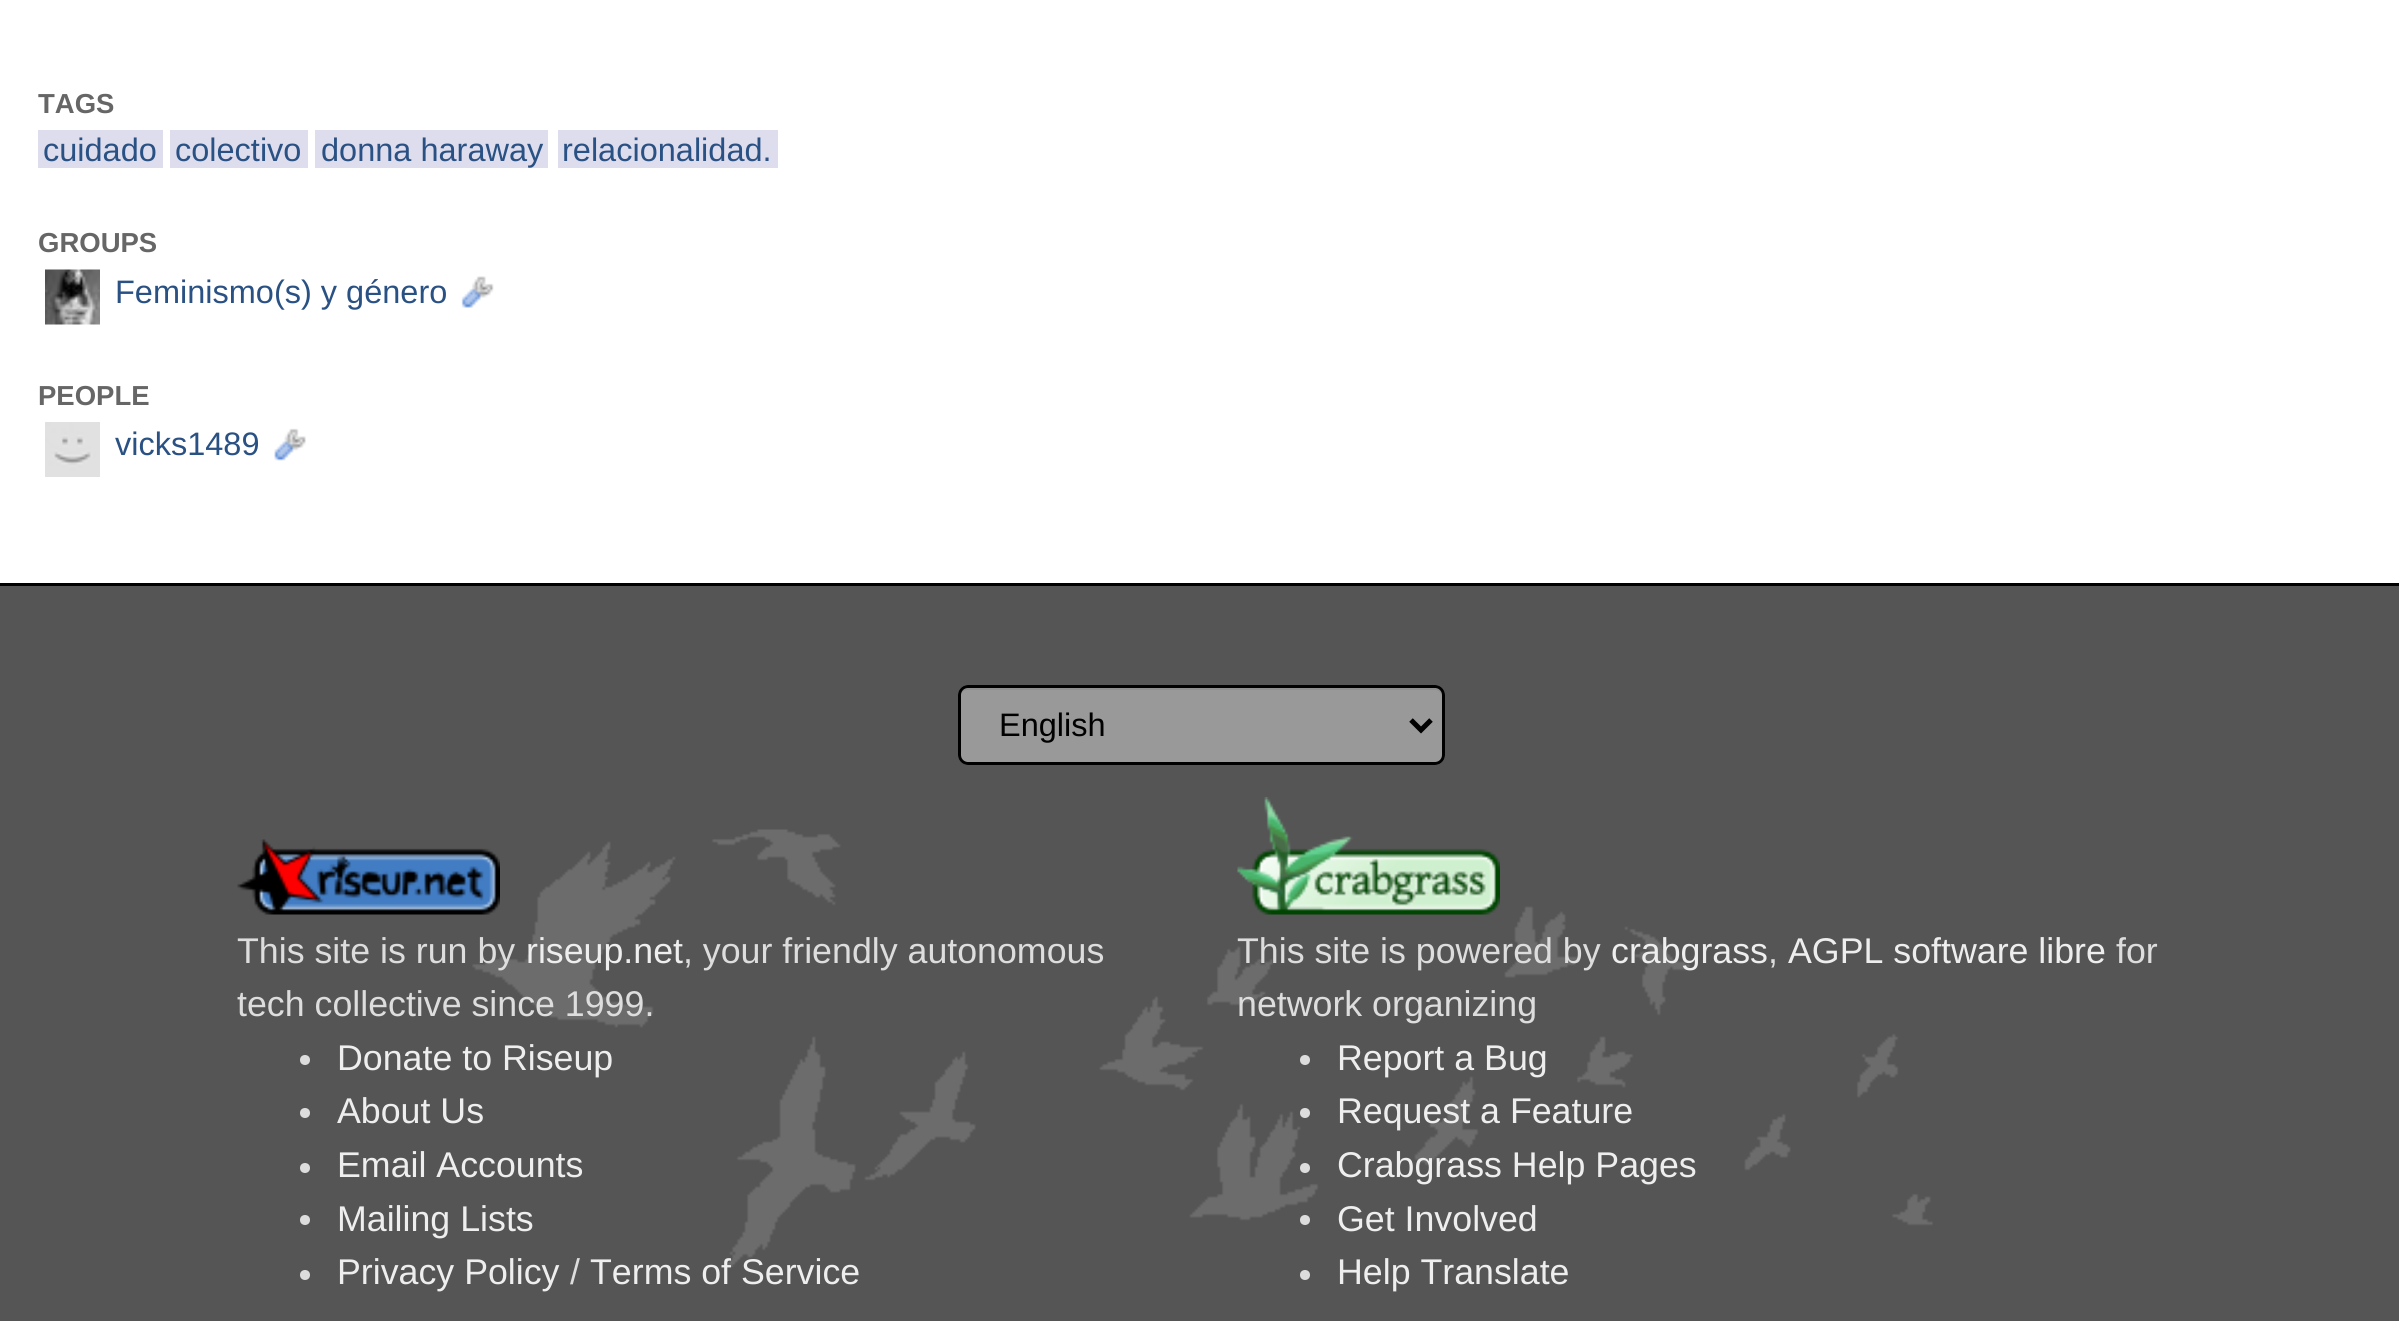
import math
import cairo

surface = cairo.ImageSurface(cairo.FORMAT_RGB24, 2399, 1321)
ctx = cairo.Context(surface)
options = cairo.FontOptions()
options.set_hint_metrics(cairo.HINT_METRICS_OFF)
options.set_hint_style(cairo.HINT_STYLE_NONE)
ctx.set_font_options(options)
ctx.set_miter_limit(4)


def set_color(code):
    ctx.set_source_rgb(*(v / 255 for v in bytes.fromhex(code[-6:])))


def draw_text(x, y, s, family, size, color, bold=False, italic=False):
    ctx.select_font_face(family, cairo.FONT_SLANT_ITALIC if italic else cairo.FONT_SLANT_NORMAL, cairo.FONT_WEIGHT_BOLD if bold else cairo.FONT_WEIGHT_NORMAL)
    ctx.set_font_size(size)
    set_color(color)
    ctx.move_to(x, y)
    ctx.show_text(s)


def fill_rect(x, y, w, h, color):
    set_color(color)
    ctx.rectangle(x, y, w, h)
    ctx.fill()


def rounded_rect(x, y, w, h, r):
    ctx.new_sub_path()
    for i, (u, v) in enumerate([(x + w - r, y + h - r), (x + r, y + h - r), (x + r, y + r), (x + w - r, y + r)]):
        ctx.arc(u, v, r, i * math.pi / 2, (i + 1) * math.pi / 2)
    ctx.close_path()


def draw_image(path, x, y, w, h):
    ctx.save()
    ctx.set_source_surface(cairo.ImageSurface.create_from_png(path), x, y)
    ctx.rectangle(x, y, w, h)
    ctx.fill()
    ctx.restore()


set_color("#555555")
ctx.paint()
fill_rect(0, 0, 2399, 583, "#ffffff")
fill_rect(0, 583, 2399, 3, "#000000")
draw_text(38, 113, "TAGS", "Liberation Sans", 27.5, "#666666", bold=True)
fill_rect(38, 130, 125, 38, "#ddddee")
draw_text(43, 161, "cuidado", "Liberation Sans", 32.5, "#2a5183")
fill_rect(170, 130, 138, 38, "#ddddee")
draw_text(175, 161, "colectivo", "Liberation Sans", 32.5, "#2a5183")
fill_rect(315, 130, 233, 38, "#ddddee")
draw_text(321, 161, "donna haraway", "Liberation Sans", 32.5, "#2a5183")
fill_rect(558, 130, 220, 38, "#ddddee")
draw_text(562, 161, "relacionalidad.", "Liberation Sans", 32.5, "#2a5183")
draw_text(38, 252, "GROUPS", "Liberation Sans", 27.5, "#666666", bold=True)
draw_image("assets/img1.png", 45, 269, 55, 56)
draw_text(115, 303, "Feminismo(s) y género", "Liberation Sans", 32.5, "#2a5183")
draw_image("assets/img2.png", 461, 276, 33, 32)
draw_text(38, 405, "PEOPLE", "Liberation Sans", 27.5, "#666666", bold=True)
draw_image("assets/img3.png", 45, 422, 55, 55)
draw_text(115, 455, "vicks1489", "Liberation Sans", 32.5, "#2a5183")
draw_image("assets/img4.png", 274, 428, 32, 33)
draw_image("assets/img5.png", 472, 829, 1461, 438)
set_color("#999999")
rounded_rect(958, 685, 487, 80, 10)
ctx.fill()
set_color("#8e8e8e")
ctx.new_path()
ctx.move_to(968, 690)
ctx.line_to(1435, 690)
ctx.curve_to(1439, 690, 1442, 693, 1442, 698)
ctx.line_to(1442, 759)
ctx.curve_to(1443, 758, 1443, 756, 1443, 755)
ctx.line_to(1443, 696)
ctx.curve_to(1443, 692, 1439, 688, 1435, 688)
ctx.line_to(968, 688)
ctx.curve_to(964, 688, 960, 692, 960, 696)
ctx.line_to(960, 698)
ctx.curve_to(960, 693, 963, 690, 968, 690)
ctx.close_path()
ctx.fill()
rounded_rect(959.5, 686.5, 484, 77, 8.5)
set_color("#000000")
ctx.set_line_width(3)
ctx.stroke()
ctx.new_path()
ctx.move_to(1411, 720)
ctx.line_to(1421, 730)
ctx.line_to(1431, 720)
ctx.set_line_width(5)
ctx.stroke()
draw_text(999, 736, "English", "Liberation Sans", 32.5, "#000000")
draw_image("assets/img6.png", 237, 839, 263, 76)
draw_text(237, 963, "This site is run by", "Liberation Sans", 35.75, "#dddddd")
draw_text(526, 963, "riseup.net", "Liberation Sans", 35.75, "#eeeeee")
draw_text(683, 963, ", your friendly autonomous", "Liberation Sans", 35.75, "#dddddd")
draw_text(237, 1016, "tech collective since 1999.", "Liberation Sans", 35.75, "#dddddd")
ctx.new_path()
ctx.arc(305, 1060, 5, 0, 2 * math.pi)
ctx.fill()
draw_text(337, 1070, "Donate to Riseup", "Liberation Sans", 35.75, "#eeeeee")
set_color("#dddddd")
ctx.new_path()
ctx.arc(305, 1113, 5, 0, 2 * math.pi)
ctx.fill()
draw_text(337, 1123, "About Us", "Liberation Sans", 35.75, "#eeeeee")
set_color("#dddddd")
ctx.new_path()
ctx.arc(305, 1168, 5, 0, 2 * math.pi)
ctx.fill()
draw_text(337, 1177, "Email Accounts", "Liberation Sans", 35.75, "#eeeeee")
set_color("#dddddd")
ctx.new_path()
ctx.arc(305, 1220, 5, 0, 2 * math.pi)
ctx.fill()
draw_text(337, 1231, "Mailing Lists", "Liberation Sans", 35.75, "#eeeeee")
set_color("#dddddd")
ctx.new_path()
ctx.arc(305, 1275, 5, 0, 2 * math.pi)
ctx.fill()
draw_text(337, 1284, "Privacy Policy", "Liberation Sans", 35.75, "#eeeeee")
draw_text(570, 1284, "/", "Liberation Sans", 35.75, "#dddddd")
draw_text(590, 1284, "Terms of Service", "Liberation Sans", 35.75, "#eeeeee")
draw_image("assets/img7.png", 1237, 797, 263, 118)
draw_text(1237, 963, "This site is powered by", "Liberation Sans", 35.75, "#dddddd")
draw_text(1611, 963, "crabgrass", "Liberation Sans", 35.75, "#eeeeee")
draw_text(1768, 963, ",", "Liberation Sans", 35.75, "#dddddd")
draw_text(1788, 963, "AGPL software libre", "Liberation Sans", 35.75, "#eeeeee")
draw_text(2116, 963, "for", "Liberation Sans", 35.75, "#dddddd")
draw_text(1237, 1016, "network organizing", "Liberation Sans", 35.75, "#dddddd")
ctx.new_path()
ctx.arc(1305, 1060, 5, 0, 2 * math.pi)
ctx.fill()
draw_text(1337, 1070, "Report a Bug", "Liberation Sans", 35.75, "#eeeeee")
set_color("#dddddd")
ctx.new_path()
ctx.arc(1305, 1113, 5, 0, 2 * math.pi)
ctx.fill()
draw_text(1337, 1123, "Request a Feature", "Liberation Sans", 35.75, "#eeeeee")
set_color("#dddddd")
ctx.new_path()
ctx.arc(1305, 1168, 5, 0, 2 * math.pi)
ctx.fill()
draw_text(1337, 1177, "Crabgrass Help Pages", "Liberation Sans", 35.75, "#eeeeee")
set_color("#dddddd")
ctx.new_path()
ctx.arc(1305, 1220, 5, 0, 2 * math.pi)
ctx.fill()
draw_text(1337, 1231, "Get Involved", "Liberation Sans", 35.75, "#eeeeee")
set_color("#dddddd")
ctx.new_path()
ctx.arc(1305, 1275, 5, 0, 2 * math.pi)
ctx.fill()
draw_text(1337, 1284, "Help Translate", "Liberation Sans", 35.75, "#eeeeee")
surface.write_to_png("output.png")
